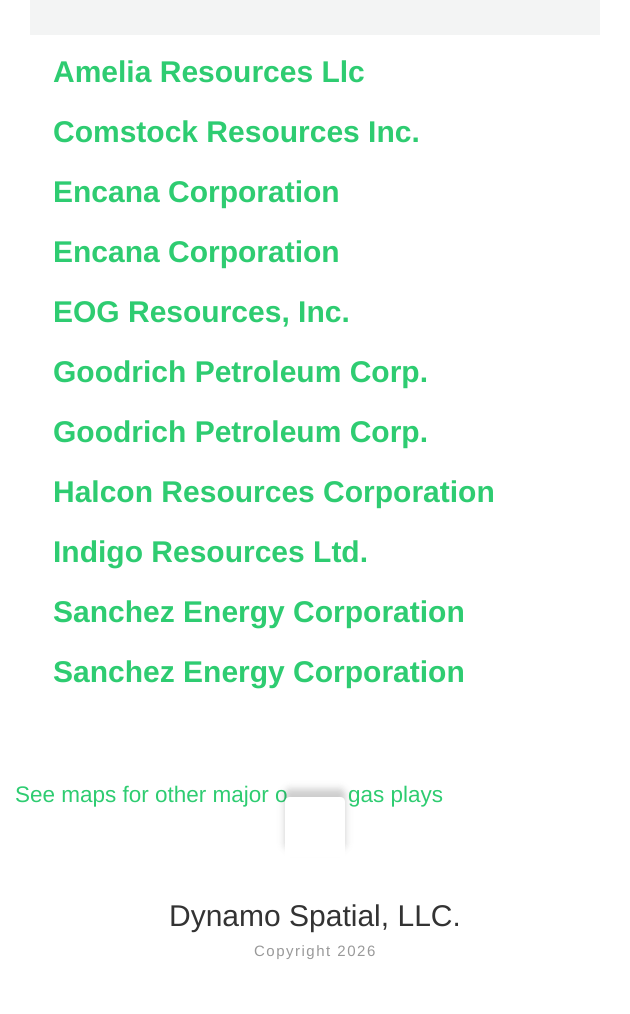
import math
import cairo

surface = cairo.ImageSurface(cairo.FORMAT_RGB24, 630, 1014)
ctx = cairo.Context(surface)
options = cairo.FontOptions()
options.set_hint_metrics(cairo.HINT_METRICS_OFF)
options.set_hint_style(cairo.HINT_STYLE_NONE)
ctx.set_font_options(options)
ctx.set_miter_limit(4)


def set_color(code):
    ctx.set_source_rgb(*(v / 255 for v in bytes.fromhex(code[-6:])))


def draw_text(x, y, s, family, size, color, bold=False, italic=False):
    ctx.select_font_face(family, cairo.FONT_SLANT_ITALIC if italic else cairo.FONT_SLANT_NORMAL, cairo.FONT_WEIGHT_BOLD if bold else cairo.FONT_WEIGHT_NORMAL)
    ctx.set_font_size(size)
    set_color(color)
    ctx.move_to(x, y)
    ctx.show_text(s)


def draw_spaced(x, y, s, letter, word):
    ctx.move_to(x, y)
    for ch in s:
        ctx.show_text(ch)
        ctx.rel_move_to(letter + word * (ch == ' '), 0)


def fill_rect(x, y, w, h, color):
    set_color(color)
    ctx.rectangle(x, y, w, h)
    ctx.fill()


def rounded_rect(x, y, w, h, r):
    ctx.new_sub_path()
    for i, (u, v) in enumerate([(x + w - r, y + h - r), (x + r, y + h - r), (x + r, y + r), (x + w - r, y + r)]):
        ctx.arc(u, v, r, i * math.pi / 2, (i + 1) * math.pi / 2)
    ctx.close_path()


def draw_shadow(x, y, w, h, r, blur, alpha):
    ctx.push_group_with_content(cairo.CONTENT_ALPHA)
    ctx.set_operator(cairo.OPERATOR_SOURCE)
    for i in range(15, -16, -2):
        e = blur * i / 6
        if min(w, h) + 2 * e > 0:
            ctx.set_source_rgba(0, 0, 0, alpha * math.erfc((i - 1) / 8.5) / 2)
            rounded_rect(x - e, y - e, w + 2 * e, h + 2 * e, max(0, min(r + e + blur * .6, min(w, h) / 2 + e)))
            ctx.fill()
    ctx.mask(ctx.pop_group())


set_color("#ffffff")
ctx.paint()
fill_rect(30, 0, 570, 35, "#f3f4f4")
draw_text(53, 82, "Amelia Resources Llc", "Liberation Sans", 30, "#2ecc71", bold=True)
draw_text(53, 142, "Comstock Resources Inc.", "Liberation Sans", 30, "#2ecc71", bold=True)
draw_text(53, 202, "Encana Corporation", "Liberation Sans", 30, "#2ecc71", bold=True)
draw_text(53, 262, "Encana Corporation", "Liberation Sans", 30, "#2ecc71", bold=True)
draw_text(53, 322, "EOG Resources, Inc.", "Liberation Sans", 30, "#2ecc71", bold=True)
draw_text(53, 382, "Goodrich Petroleum Corp.", "Liberation Sans", 30, "#2ecc71", bold=True)
draw_text(53, 442, "Goodrich Petroleum Corp.", "Liberation Sans", 30, "#2ecc71", bold=True)
draw_text(53, 502, "Halcon Resources Corporation", "Liberation Sans", 30, "#2ecc71", bold=True)
draw_text(53, 562, "Indigo Resources Ltd.", "Liberation Sans", 30, "#2ecc71", bold=True)
draw_text(53, 622, "Sanchez Energy Corporation", "Liberation Sans", 30, "#2ecc71", bold=True)
draw_text(53, 682, "Sanchez Energy Corporation", "Liberation Sans", 30, "#2ecc71", bold=True)
draw_text(15, 802, "See maps for other major o", "Liberation Sans", 22.5, "#2ecc71")
draw_text(348, 802, "gas plays", "Liberation Sans", 22.5, "#2ecc71")
set_color("#000000")
draw_shadow(285, 789, 60, 60, 5, 4, 0.2)
set_color("#ffffff")
ctx.new_path()
ctx.move_to(290, 797)
ctx.line_to(340, 797)
ctx.curve_to(343, 797, 345, 799, 345, 802)
ctx.line_to(345, 857)
ctx.line_to(285, 857)
ctx.line_to(285, 802)
ctx.curve_to(285, 799, 287, 797, 290, 797)
ctx.close_path()
ctx.fill()
draw_text(169, 926, "Dynamo Spatial, LLC.", "Liberation Sans", 30, "#333333")
ctx.set_font_size(15)
set_color("#999999")
draw_spaced(254, 956, "Copyright 2026", 1.5, 0)
surface.write_to_png("output.png")
